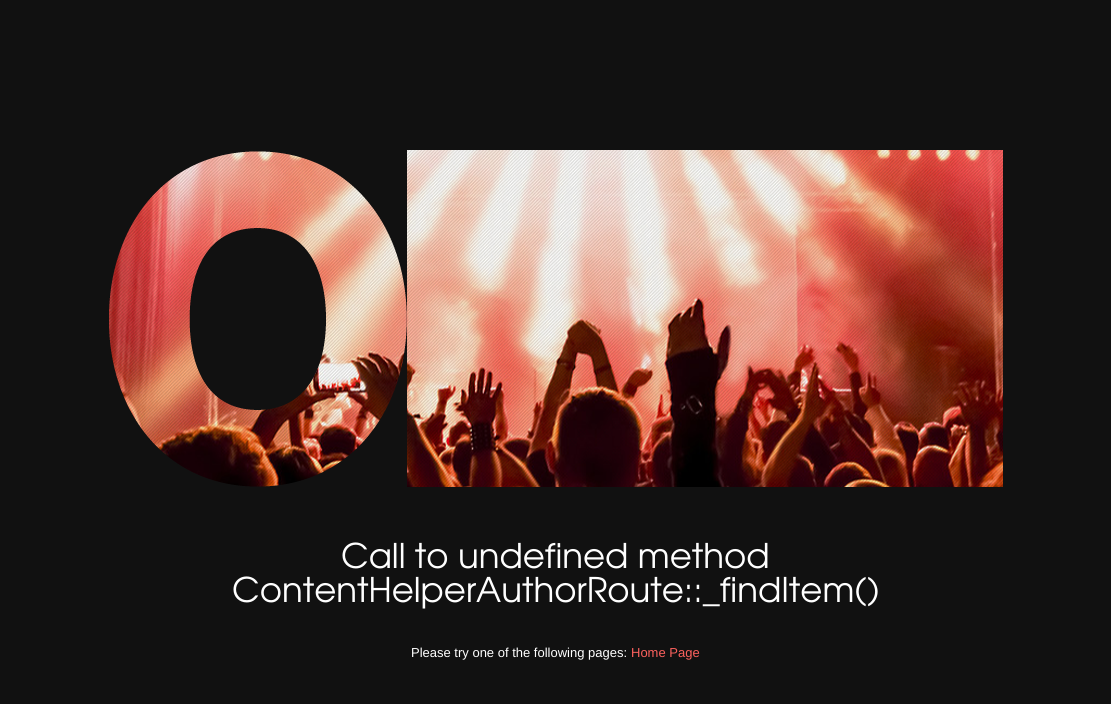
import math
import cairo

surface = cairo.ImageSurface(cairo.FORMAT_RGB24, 1111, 704)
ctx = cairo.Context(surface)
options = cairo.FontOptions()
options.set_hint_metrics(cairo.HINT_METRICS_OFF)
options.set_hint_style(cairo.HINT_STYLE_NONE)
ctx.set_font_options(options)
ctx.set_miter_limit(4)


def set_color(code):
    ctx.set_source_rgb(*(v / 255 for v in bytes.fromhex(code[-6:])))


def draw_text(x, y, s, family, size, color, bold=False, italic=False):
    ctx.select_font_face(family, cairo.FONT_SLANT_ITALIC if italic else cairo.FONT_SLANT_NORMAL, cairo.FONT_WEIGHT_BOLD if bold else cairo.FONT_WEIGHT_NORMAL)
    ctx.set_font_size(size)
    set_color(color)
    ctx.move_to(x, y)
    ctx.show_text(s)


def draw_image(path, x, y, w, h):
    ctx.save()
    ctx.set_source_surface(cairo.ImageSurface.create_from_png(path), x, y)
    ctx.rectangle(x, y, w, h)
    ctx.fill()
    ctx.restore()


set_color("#111111")
ctx.paint()
draw_image("assets/img1.png", 109, 150, 894, 337)
draw_image("assets/img2.png", 109, 150, 298, 337)
draw_text(341, 568, "Call to undefined method", "TeX Gyre Adventor", 34, "#ffffff")
draw_text(232, 602, "ContentHelperAuthorRoute::_findItem()", "TeX Gyre Adventor", 34, "#ffffff")
draw_text(411, 657, "Please try one of the following pages:", "Liberation Sans", 13, "#ffffff")
draw_text(631, 657, "Home Page", "Liberation Sans", 13, "#fc615d")
surface.write_to_png("output.png")
